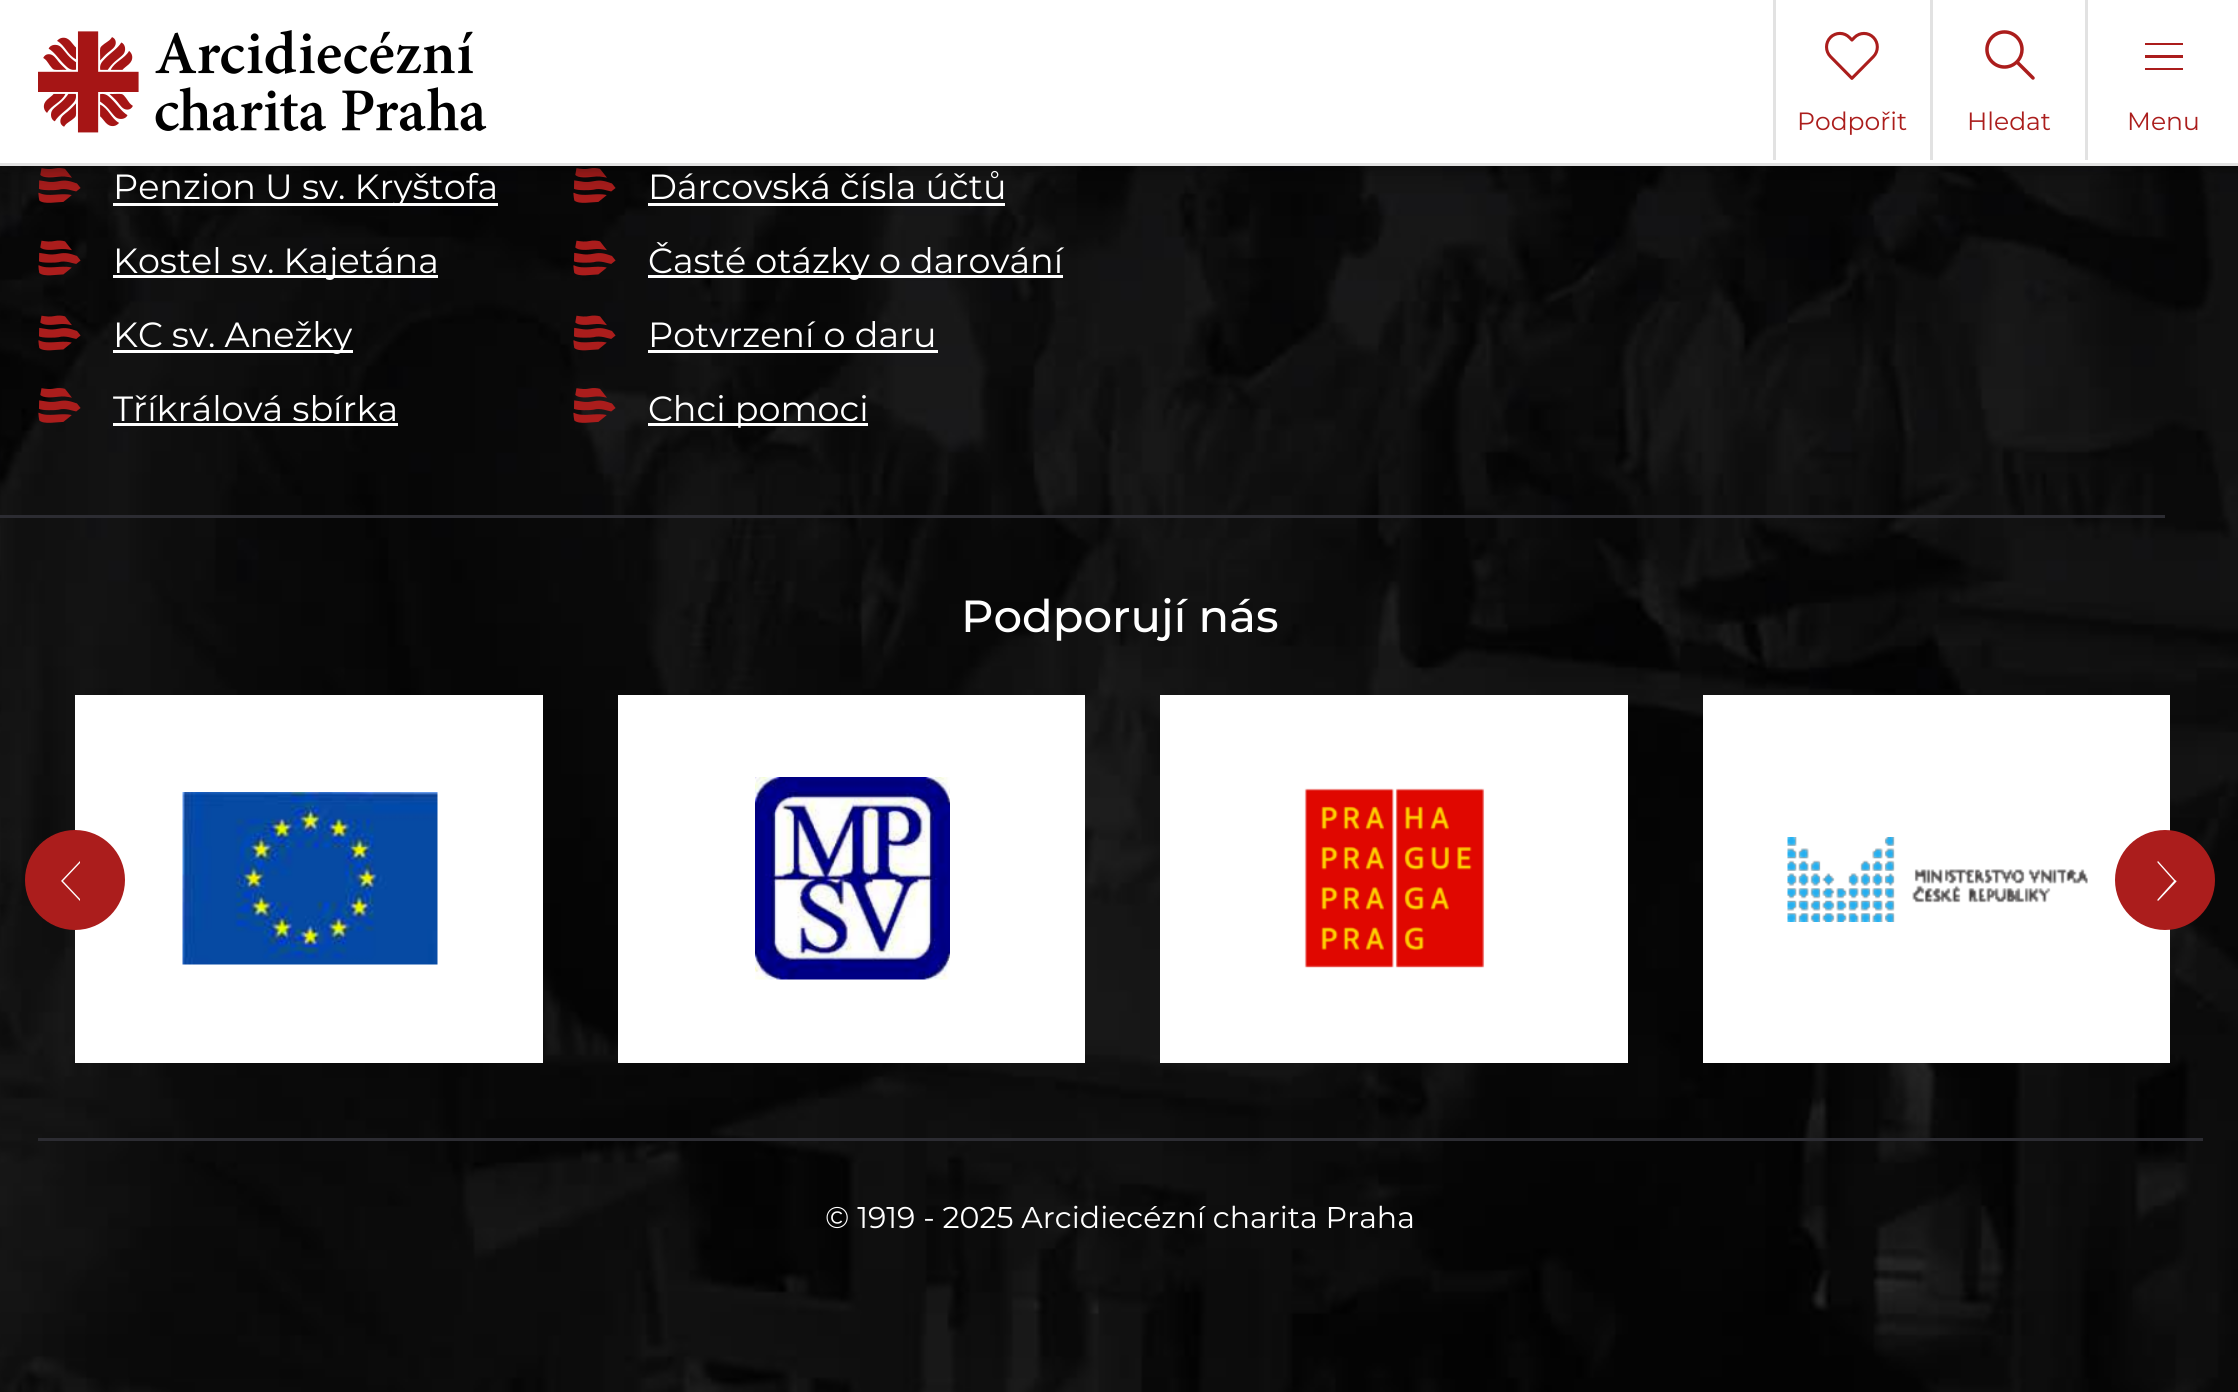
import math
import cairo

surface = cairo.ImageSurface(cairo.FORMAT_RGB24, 2238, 1392)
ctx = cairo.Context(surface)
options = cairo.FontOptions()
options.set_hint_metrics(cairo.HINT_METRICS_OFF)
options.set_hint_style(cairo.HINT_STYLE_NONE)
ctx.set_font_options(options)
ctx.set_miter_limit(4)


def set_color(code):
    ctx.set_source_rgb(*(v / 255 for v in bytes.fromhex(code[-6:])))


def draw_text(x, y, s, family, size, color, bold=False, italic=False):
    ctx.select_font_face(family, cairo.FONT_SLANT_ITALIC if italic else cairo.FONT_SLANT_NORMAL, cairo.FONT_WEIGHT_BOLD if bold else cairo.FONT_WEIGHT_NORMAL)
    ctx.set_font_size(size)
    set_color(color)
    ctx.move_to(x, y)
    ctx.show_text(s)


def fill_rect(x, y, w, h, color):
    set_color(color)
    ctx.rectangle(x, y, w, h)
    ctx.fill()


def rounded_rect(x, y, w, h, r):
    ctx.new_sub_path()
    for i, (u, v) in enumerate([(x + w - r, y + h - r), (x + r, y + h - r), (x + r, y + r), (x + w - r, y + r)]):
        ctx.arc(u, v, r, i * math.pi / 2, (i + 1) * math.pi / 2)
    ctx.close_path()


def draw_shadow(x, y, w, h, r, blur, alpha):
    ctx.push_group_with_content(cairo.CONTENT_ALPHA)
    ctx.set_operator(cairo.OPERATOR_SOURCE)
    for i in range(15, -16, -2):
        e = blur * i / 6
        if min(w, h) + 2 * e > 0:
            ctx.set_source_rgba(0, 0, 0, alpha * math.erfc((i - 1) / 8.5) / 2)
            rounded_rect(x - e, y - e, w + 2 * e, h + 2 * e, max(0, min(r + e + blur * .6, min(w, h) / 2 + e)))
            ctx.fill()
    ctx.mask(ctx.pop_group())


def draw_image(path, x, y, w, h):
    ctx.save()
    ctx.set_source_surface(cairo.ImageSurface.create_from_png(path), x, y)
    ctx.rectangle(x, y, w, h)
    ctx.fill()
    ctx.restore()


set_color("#ffffff")
ctx.paint()
draw_image("assets/img4.png", 0, 166, 2238, 1226)
draw_image("assets/img5.png", 38, 168, 43, 35)
fill_rect(113, 203, 385, 3, "#ffffff")
draw_image("assets/img9.png", 573, 168, 43, 35)
fill_rect(648, 203, 357, 3, "#ffffff")
set_color("#000000")
draw_shadow(0, 13, 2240, 165, 0, 12.5, 0.2)
fill_rect(0, 0, 2238, 163, "#ffffff")
ctx.save()
ctx.rectangle(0, 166, 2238, 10)
ctx.clip()
set_color("#000000")
draw_shadow(0, 5, 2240, 165, 0, 5, 0.2)
ctx.restore()
fill_rect(0, 163, 2238, 3, "#e2e2e2")
draw_image("assets/img1.png", 38, 30, 449, 103)
fill_rect(1773, 0, 3, 160, "#e2e2e2")
draw_image("assets/img2.png", 1825, 31, 54, 49)
draw_text(1797, 130, "Podpořit", "Montserrat", 25, "#ab1d1c")
fill_rect(1930, 0, 3, 160, "#e2e2e2")
draw_image("assets/img3.png", 1985, 30, 50, 50)
draw_text(1967, 130, "Hledat", "Montserrat", 25, "#ab1d1c")
fill_rect(2085, 0, 3, 160, "#e2e2e2")
fill_rect(2145, 43, 38, 2, "#ab1d1c")
fill_rect(2145, 55, 38, 3, "#ab1d1c")
fill_rect(2145, 68, 38, 2, "#ab1d1c")
draw_text(2127, 130, "Menu", "Montserrat", 25, "#ab1d1c")
fill_rect(0, 515, 2165, 3, "#2c2c32")
draw_text(113, 199, "Penzion U sv. Kryštofa", "Montserrat", 35, "#ffffff")
draw_image("assets/img6.png", 38, 240, 43, 36)
fill_rect(113, 275, 325, 3, "#ffffff")
draw_text(113, 273, "Kostel sv. Kajetána", "Montserrat", 35, "#ffffff")
draw_image("assets/img7.png", 38, 315, 43, 36)
fill_rect(113, 350, 240, 3, "#ffffff")
draw_text(113, 347, "KC sv. Anežky", "Montserrat", 35, "#ffffff")
draw_image("assets/img8.png", 38, 388, 43, 35)
draw_text(113, 421, "Tříkrálová sbírka", "Montserrat", 35, "#ffffff")
fill_rect(113, 423, 285, 3, "#ffffff")
draw_text(648, 199, "Dárcovská čísla účtů", "Montserrat", 35, "#ffffff")
draw_image("assets/img10.png", 573, 240, 43, 36)
fill_rect(648, 275, 415, 3, "#ffffff")
draw_text(648, 273, "Časté otázky o darování", "Montserrat", 35, "#ffffff")
draw_image("assets/img11.png", 573, 315, 43, 36)
draw_text(648, 347, "Potvrzení o daru", "Montserrat", 35, "#ffffff")
fill_rect(648, 350, 290, 3, "#ffffff")
draw_image("assets/img12.png", 573, 388, 43, 35)
fill_rect(648, 423, 220, 3, "#ffffff")
draw_text(648, 421, "Chci pomoci", "Montserrat", 35, "#ffffff")
fill_rect(38, 1138, 2165, 3, "#2c2c32")
draw_text(961, 632, "Podporují nás", "Montserrat Medium", 45, "#ffffff")
fill_rect(75, 695, 468, 368, "#ffffff")
draw_image("assets/img13.png", 182, 792, 256, 173)
fill_rect(618, 695, 467, 368, "#ffffff")
draw_image("assets/img14.png", 755, 777, 195, 203)
fill_rect(1160, 695, 468, 368, "#ffffff")
draw_image("assets/img15.png", 1304, 788, 181, 180)
fill_rect(1703, 695, 467, 368, "#ffffff")
draw_image("assets/img16.png", 1787, 837, 301, 85)
set_color("#ab1d1c")
ctx.arc(75, 880, 50, 0, 2 * math.pi)
ctx.fill()
set_color("#ffffff")
ctx.new_path()
ctx.move_to(62, 882)
ctx.line_to(80, 901)
ctx.line_to(80, 899)
ctx.line_to(63, 881)
ctx.line_to(80, 863)
ctx.line_to(80, 861)
ctx.line_to(61, 881)
ctx.close_path()
ctx.fill()
set_color("#ab1d1c")
ctx.arc(2165, 880, 50, 0, 2 * math.pi)
ctx.fill()
set_color("#ffffff")
ctx.new_path()
ctx.move_to(2175, 880)
ctx.line_to(2158, 861)
ctx.line_to(2157.5, 861.5)
ctx.line_to(2157.5, 862.5)
ctx.line_to(2174, 881)
ctx.line_to(2157.5, 899.5)
ctx.line_to(2157.5, 900.5)
ctx.line_to(2158, 901)
ctx.line_to(2176.5, 881.5)
ctx.line_to(2176.5, 881)
ctx.close_path()
ctx.fill()
draw_text(825, 1228, "© 1919 - 2025 Arcidiecézní charita Praha", "Montserrat", 30, "#ffffff")
surface.write_to_png("output.png")
